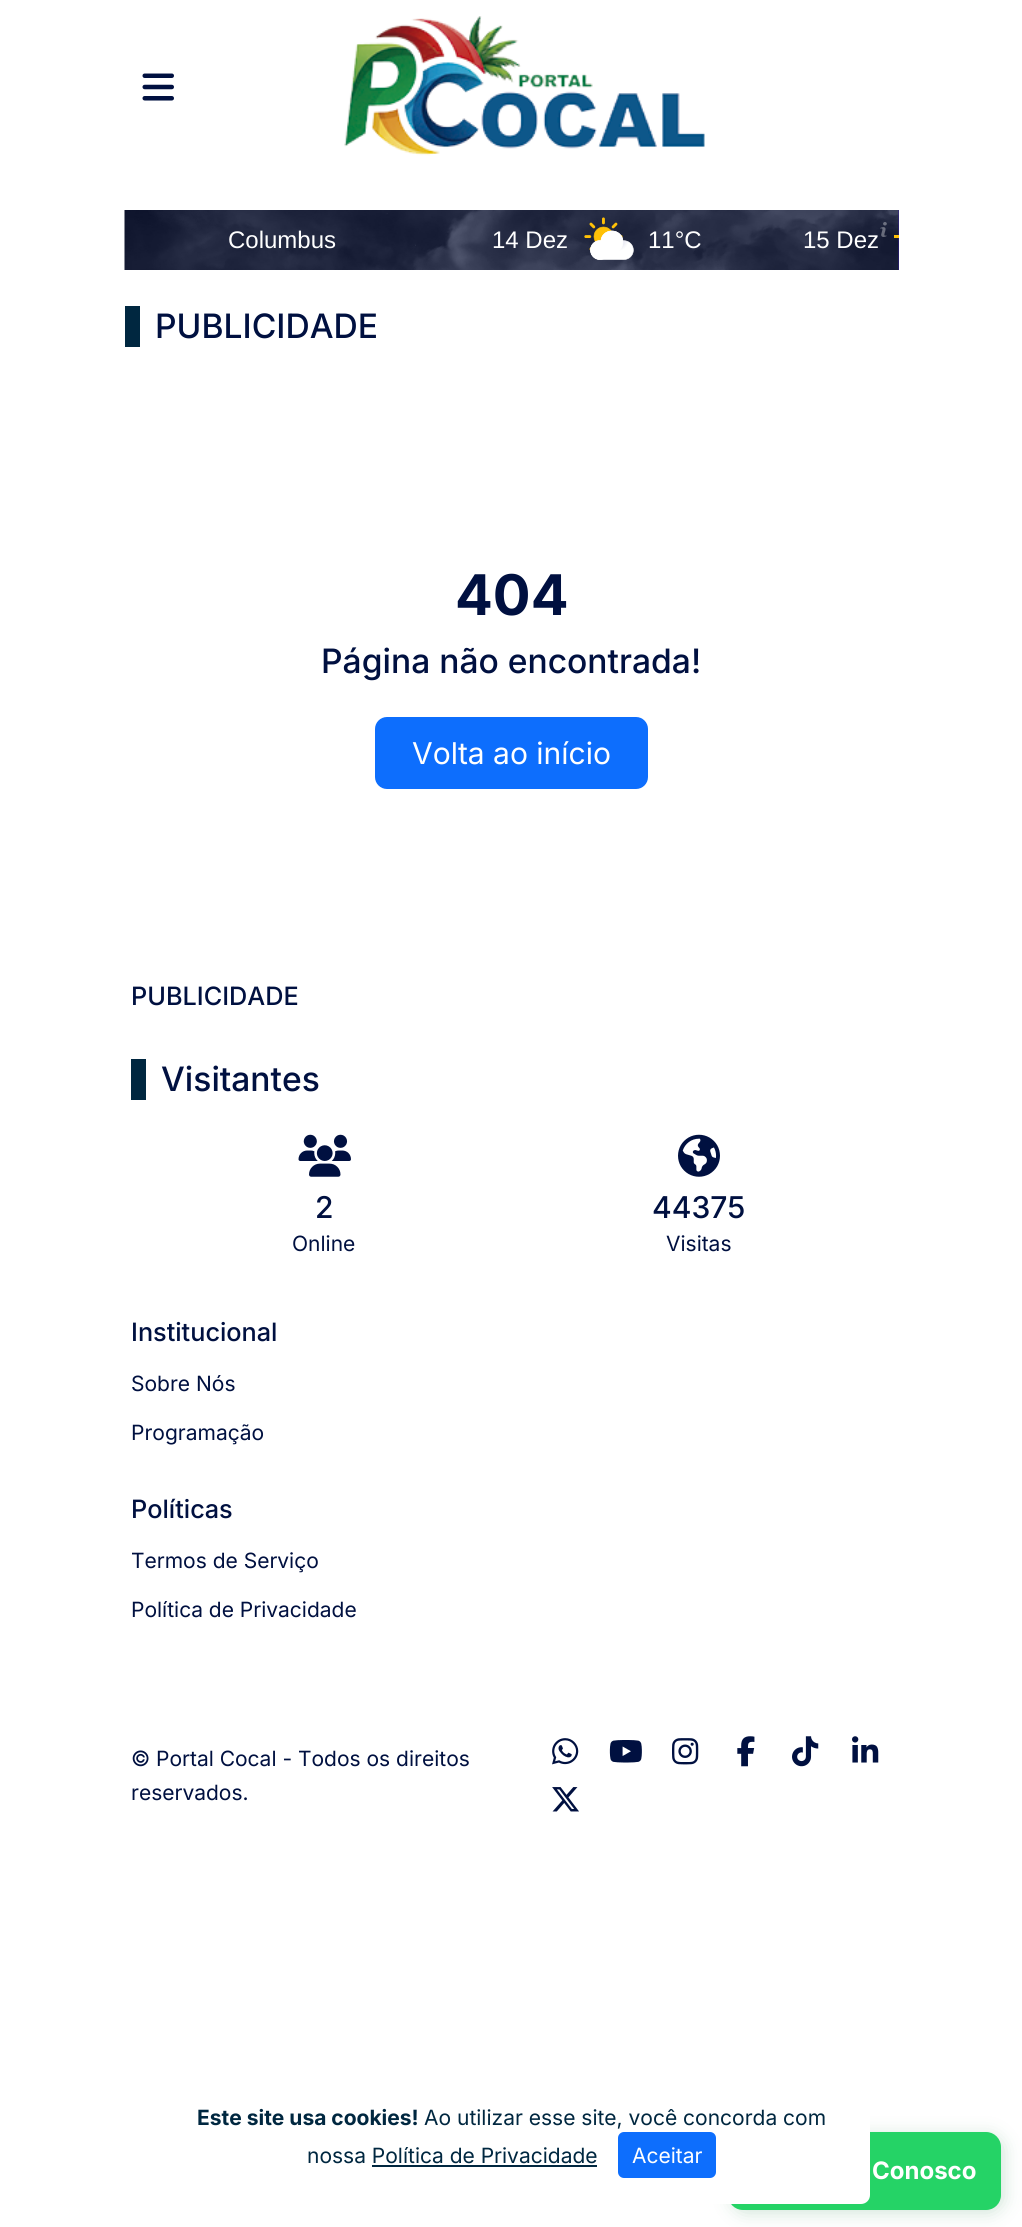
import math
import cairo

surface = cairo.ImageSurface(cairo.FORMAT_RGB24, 1022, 2227)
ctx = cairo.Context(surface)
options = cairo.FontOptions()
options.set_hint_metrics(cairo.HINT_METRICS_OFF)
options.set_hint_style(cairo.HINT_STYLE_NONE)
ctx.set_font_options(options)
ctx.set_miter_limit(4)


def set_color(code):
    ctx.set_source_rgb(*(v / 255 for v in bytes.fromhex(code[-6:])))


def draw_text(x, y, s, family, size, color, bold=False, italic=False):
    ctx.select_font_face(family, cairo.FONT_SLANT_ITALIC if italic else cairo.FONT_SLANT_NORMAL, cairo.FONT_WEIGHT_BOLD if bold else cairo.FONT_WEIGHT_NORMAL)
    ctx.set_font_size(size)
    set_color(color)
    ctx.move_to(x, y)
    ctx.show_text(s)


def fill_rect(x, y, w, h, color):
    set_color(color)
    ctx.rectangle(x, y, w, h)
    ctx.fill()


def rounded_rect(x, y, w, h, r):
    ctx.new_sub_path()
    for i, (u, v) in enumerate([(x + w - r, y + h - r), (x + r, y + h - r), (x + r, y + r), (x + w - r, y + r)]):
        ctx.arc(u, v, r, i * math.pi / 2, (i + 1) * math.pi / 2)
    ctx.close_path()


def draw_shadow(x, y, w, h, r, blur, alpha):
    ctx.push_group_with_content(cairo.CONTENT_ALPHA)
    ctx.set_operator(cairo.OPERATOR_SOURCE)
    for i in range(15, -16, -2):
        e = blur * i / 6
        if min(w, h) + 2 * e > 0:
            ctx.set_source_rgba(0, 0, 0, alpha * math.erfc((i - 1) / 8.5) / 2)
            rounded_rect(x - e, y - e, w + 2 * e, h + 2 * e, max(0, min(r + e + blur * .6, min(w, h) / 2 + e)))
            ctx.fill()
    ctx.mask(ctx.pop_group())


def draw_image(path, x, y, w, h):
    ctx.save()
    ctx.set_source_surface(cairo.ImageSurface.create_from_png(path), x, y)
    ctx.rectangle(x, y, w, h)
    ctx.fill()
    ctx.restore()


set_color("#ffffff")
ctx.paint()
draw_image("assets/img1.png", 142, 73, 32, 28)
draw_image("assets/img2.png", 344, 16, 361, 140)
fill_rect(898, 210, 1, 60, "#311b92")
draw_image("assets/img3.png", 124, 210, 775, 60)
draw_text(228, 248, "Columbus", "Liberation Sans", 24, "#ffffff")
draw_text(492, 248, "14 Dez", "Liberation Sans", 24, "#ffffff")
draw_image("assets/img4.png", 584, 217, 50, 43)
draw_text(648, 248, "11°C", "Liberation Sans", 24, "#ffffff")
draw_text(803, 248, "15 Dez", "Liberation Sans", 24, "#ffffff")
fill_rect(894, 235, 5, 3, "#ffc107")
draw_image("assets/img5.png", 880, 222, 7, 15)
fill_rect(125, 306, 15, 41, "#002740")
draw_text(155, 338, "PUBLICIDADE", "Inter Medium", 33.6, "#001040")
draw_text(455, 615, "404", "Inter", 56, "#001040", bold=True)
draw_text(321, 673, "Página não encontrada!", "Inter Medium", 33.6, "#001040")
set_color("#0d6efd")
rounded_rect(376, 718, 271, 70, 11)
ctx.fill_preserve()
ctx.stroke()
draw_text(412, 764, "Volta ao início", "Inter", 30, "#ffffff")
draw_text(131, 1005, "PUBLICIDADE", "Inter Medium", 25.25, "#001040")
fill_rect(131, 1059, 15, 41, "#002740")
draw_text(161, 1091, "Visitantes", "Inter Medium", 33.6, "#001040")
draw_image("assets/img6.png", 298, 1134, 53, 43)
draw_text(315, 1218, "2", "Inter Medium", 30, "#001040")
draw_text(292, 1251, "Online", "Inter", 21, "#001040")
draw_image("assets/img7.png", 678, 1134, 42, 43)
draw_text(652, 1218, "44375", "Inter Medium", 30, "#001040")
draw_text(666, 1251, "Visitas", "Inter", 21, "#001040")
draw_text(131, 1341, "Institucional", "Inter Medium", 25.25, "#001040")
draw_text(131, 1391, "Sobre Nós", "Inter", 21, "#001040")
draw_text(131, 1440, "Programação", "Inter", 21, "#001040")
draw_text(131, 1518, "Políticas", "Inter Medium", 25.25, "#001040")
draw_text(131, 1568, "Termos de Serviço", "Inter", 21, "#001040")
draw_text(131, 1617, "Política de Privacidade", "Inter", 21, "#001040")
draw_text(131, 1766, "© Portal Cocal - Todos os direitos", "Inter", 21, "#001040")
draw_text(131, 1800, "reservados.", "Inter", 21, "#001040")
draw_image("assets/img8.png", 552, 1738, 27, 27)
draw_image("assets/img9.png", 609, 1740, 33, 23)
draw_image("assets/img10.png", 672, 1738, 27, 27)
draw_image("assets/img11.png", 737, 1736, 18, 31)
draw_image("assets/img12.png", 792, 1736, 27, 31)
draw_image("assets/img13.png", 852, 1736, 27, 27)
draw_image("assets/img14.png", 552, 1787, 27, 25)
set_color("#167c3c")
draw_shadow(731, 2135, 273, 78, 15, 9, 0.2)
set_color("#25d366")
rounded_rect(728, 2132, 273, 78, 15)
ctx.fill()
set_color("#ffffff")
rounded_rect(153, 2076, 717, 128, 9)
ctx.fill()
draw_text(197, 2125, "Este site usa cookies!", "Inter", 21, "#002740", bold=True)
draw_text(424, 2125, "Ao utilizar esse site, você concorda com", "Inter", 21, "#002740")
draw_text(307, 2163, "nossa Política de Privacidade", "Inter", 21, "#002740")
set_color("#0d6efd")
rounded_rect(619, 2133, 96, 44, 5)
ctx.fill_preserve()
ctx.stroke()
draw_text(632, 2163, "Aceitar", "Inter", 21, "#ffffff")
fill_rect(372, 2165, 225, 2, "#002740")
draw_text(872, 2179, "Conosco", "Inter", 24, "#ffffff", bold=True)
surface.write_to_png("output.png")
